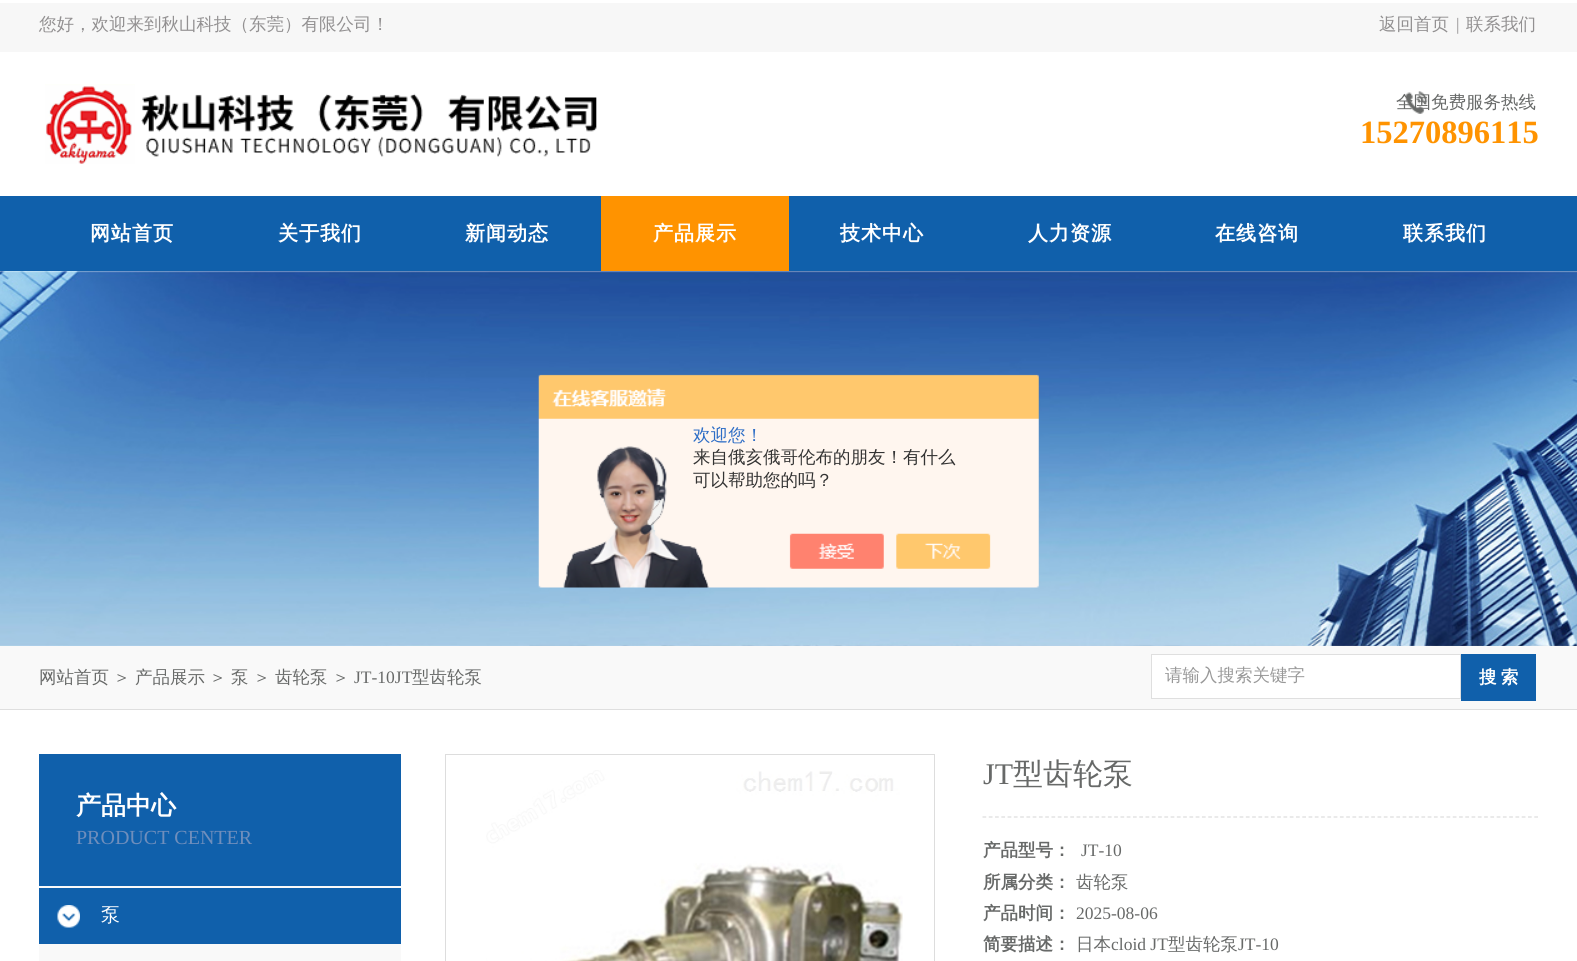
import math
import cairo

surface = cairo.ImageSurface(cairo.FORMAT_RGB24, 1577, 961)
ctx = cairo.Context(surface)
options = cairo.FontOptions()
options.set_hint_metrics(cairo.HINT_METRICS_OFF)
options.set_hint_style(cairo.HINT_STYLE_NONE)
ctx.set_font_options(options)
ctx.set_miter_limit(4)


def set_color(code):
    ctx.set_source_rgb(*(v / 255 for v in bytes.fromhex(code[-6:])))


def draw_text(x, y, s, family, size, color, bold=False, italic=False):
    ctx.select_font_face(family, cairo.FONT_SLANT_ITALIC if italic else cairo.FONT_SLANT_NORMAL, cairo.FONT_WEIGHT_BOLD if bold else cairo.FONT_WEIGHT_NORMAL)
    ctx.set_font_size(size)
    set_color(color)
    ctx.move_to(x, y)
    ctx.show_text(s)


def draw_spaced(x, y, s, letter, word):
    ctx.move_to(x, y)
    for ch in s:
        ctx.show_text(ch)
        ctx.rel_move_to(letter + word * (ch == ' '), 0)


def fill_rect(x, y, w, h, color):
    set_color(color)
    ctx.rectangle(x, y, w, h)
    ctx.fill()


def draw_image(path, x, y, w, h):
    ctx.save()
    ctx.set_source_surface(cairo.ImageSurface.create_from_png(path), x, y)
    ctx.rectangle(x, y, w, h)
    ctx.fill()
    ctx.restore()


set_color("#ffffff")
ctx.paint()
fill_rect(0, 3, 1577, 49, "#f7f7f7")
draw_text(39, 30, "您好，欢迎来到秋山科技（东莞）有限公司！", "WenQuanYi Zen Hei Medium", 17.5, "#929091")
draw_text(1379, 30, "返回首页", "WenQuanYi Zen Hei Medium", 17.5, "#929091")
draw_text(1456, 30, "|", "Liberation Serif", 17.5, "#929091")
draw_text(1466, 30, "联系我们", "WenQuanYi Zen Hei Medium", 17.5, "#929091")
draw_image("assets/img1.png", 45, 84, 552, 80)
draw_image("assets/img2.png", 1405, 91, 23, 23)
draw_text(1396, 108, "全国免费服务热线", "WenQuanYi Zen Hei Medium", 17.5, "#676968")
draw_text(1360, 143, "15270896115", "Liberation Serif", 32.5, "#ff9300", bold=True)
fill_rect(0, 196, 1577, 75, "#1060ab")
ctx.select_font_face("WenQuanYi Zen Hei", cairo.FONT_SLANT_NORMAL, cairo.FONT_WEIGHT_BOLD)
ctx.set_font_size(20)
set_color("#ffffff")
draw_spaced(90, 240, "网站首页", 1, 0)
draw_spaced(278, 240, "关于我们", 1, 0)
draw_spaced(465, 240, "新闻动态", 1, 0)
fill_rect(601, 196, 188, 75, "#ff9300")
set_color("#ffffff")
draw_spaced(653, 240, "产品展示", 1, 0)
draw_spaced(840, 240, "技术中心", 1, 0)
draw_spaced(1028, 240, "人力资源", 1, 0)
draw_spaced(1215, 240, "在线咨询", 1, 0)
draw_spaced(1403, 240, "联系我们", 1, 0)
draw_image("assets/img3.png", 0, 271, 1577, 375)
draw_image("assets/img4.png", 538, 374, 501, 214)
draw_text(693, 441, "欢迎您！", "WenQuanYi Zen Hei Medium", 17.5, "#2e6ec6")
draw_text(693, 463, "来自俄亥俄哥伦布的朋友！有什么", "WenQuanYi Zen Hei Medium", 17.5, "#333333")
draw_text(693, 486, "可以帮助您的吗？", "WenQuanYi Zen Hei Medium", 17.5, "#333333")
fill_rect(0, 646, 1577, 63, "#f9f9f9")
fill_rect(0, 709, 1577, 1, "#dfdfdf")
draw_text(39, 683, "网站首页", "WenQuanYi Zen Hei Medium", 17.5, "#676968")
draw_text(113, 683, "＞", "WenQuanYi Zen Hei Medium", 17.5, "#676968")
draw_text(135, 683, "产品展示", "WenQuanYi Zen Hei Medium", 17.5, "#676968")
draw_text(209, 683, "＞", "WenQuanYi Zen Hei Medium", 17.5, "#676968")
draw_text(231, 683, "泵", "WenQuanYi Zen Hei Medium", 17.5, "#676968")
draw_text(253, 683, "＞", "WenQuanYi Zen Hei Medium", 17.5, "#676968")
draw_text(275, 683, "齿轮泵", "WenQuanYi Zen Hei Medium", 17.5, "#676968")
draw_text(332, 683, "＞", "WenQuanYi Zen Hei Medium", 17.5, "#676968")
draw_text(354, 683, "JT-10JT", "Liberation Serif", 17.5, "#676968")
draw_text(412, 683, "型齿轮泵", "WenQuanYi Zen Hei Medium", 17.5, "#676968")
set_color("#ffffff")
ctx.rectangle(1151.5, 654.5, 309, 44)
ctx.fill_preserve()
set_color("#dfdfdf")
ctx.set_line_width(1)
ctx.stroke()
draw_text(1165, 681, "请输入搜索关键字", "WenQuanYi Zen Hei Medium", 17.5, "#999999")
fill_rect(1461, 654, 75, 47, "#1060ab")
ctx.select_font_face("WenQuanYi Zen Hei", cairo.FONT_SLANT_NORMAL, cairo.FONT_WEIGHT_BOLD)
set_color("#ffffff")
draw_spaced(1479, 683, "搜 索", 0, -1)
fill_rect(39, 754, 362, 132, "#1060ab")
draw_text(76, 814, "产品中心", "WenQuanYi Zen Hei", 25, "#ffffff", bold=True)
draw_text(76, 844, "PRODUCT CENTER", "Liberation Serif", 20, "#6f8ebc")
fill_rect(39, 886, 362, 75, "#f9f9f9")
fill_rect(39, 888, 362, 56, "#1060ab")
draw_image("assets/img5.png", 57, 905, 23, 23)
draw_text(101, 921, "泵", "WenQuanYi Zen Hei Medium", 19, "#ffffff")
ctx.rectangle(445.5, 754.5, 489, 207)
set_color("#dddddd")
ctx.stroke()
draw_image("assets/img6.png", 486, 770, 417, 191)
ctx.new_path()
ctx.move_to(982.5, 817)
ctx.line_to(1539, 817)
ctx.set_line_width(1.2)
ctx.set_dash([3.75, 2.52])
ctx.stroke()
draw_text(983, 784, "JT", "Liberation Serif", 30, "#676968")
draw_text(1013, 784, "型齿轮泵", "WenQuanYi Zen Hei Medium", 30, "#676968")
draw_text(983, 856, "产品型号：", "WenQuanYi Zen Hei", 17.5, "#676968", bold=True)
draw_text(1081, 856, "JT-10", "Liberation Serif", 17.5, "#676968")
draw_text(983, 888, "所属分类：", "WenQuanYi Zen Hei", 17.5, "#676968", bold=True)
draw_text(1076, 888, "齿轮泵", "WenQuanYi Zen Hei Medium", 17.5, "#676968")
draw_text(983, 919, "产品时间：", "WenQuanYi Zen Hei", 17.5, "#676968", bold=True)
draw_text(1076, 919, "2025-08-06", "Liberation Serif", 17.5, "#676968")
draw_text(983, 950, "简要描述：", "WenQuanYi Zen Hei", 17.5, "#676968", bold=True)
draw_text(1076, 950, "日本", "WenQuanYi Zen Hei Medium", 17.5, "#676968")
draw_text(1111, 950, "cloid JT", "Liberation Serif", 17.5, "#676968")
draw_text(1168, 950, "型齿轮泵", "WenQuanYi Zen Hei Medium", 17.5, "#676968")
draw_text(1238, 950, "JT-10", "Liberation Serif", 17.5, "#676968")
surface.write_to_png("output.png")
